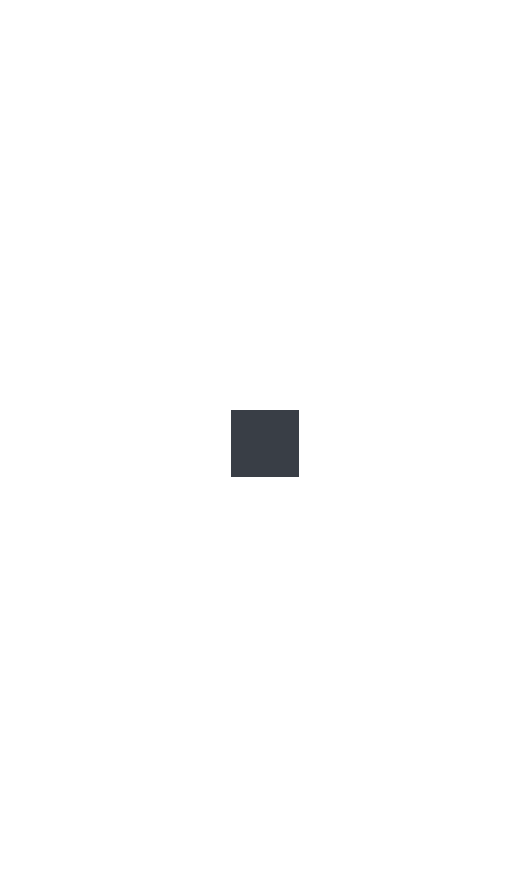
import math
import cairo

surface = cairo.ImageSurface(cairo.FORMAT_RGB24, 527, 884)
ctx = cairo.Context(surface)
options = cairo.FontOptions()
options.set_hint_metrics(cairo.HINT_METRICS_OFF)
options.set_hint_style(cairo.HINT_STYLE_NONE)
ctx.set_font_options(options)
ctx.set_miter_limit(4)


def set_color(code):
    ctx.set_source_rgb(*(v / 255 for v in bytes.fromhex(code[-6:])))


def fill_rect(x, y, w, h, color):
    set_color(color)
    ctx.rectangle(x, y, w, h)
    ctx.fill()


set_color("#ffffff")
ctx.paint()
fill_rect(231, 410, 68, 67, "#393e46")
surface.write_to_png("output.png")
